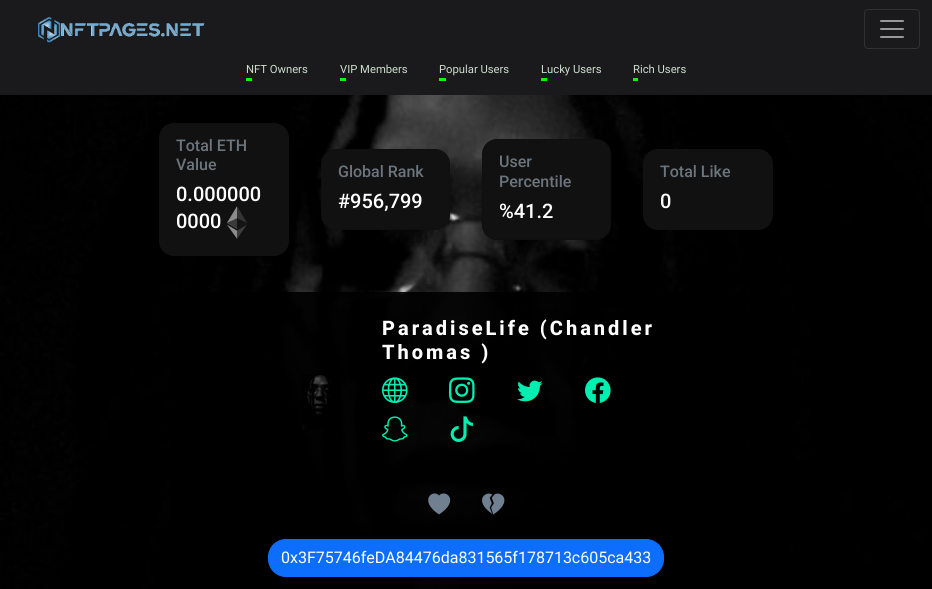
import math
import cairo

surface = cairo.ImageSurface(cairo.FORMAT_RGB24, 932, 589)
ctx = cairo.Context(surface)
options = cairo.FontOptions()
options.set_hint_metrics(cairo.HINT_METRICS_OFF)
options.set_hint_style(cairo.HINT_STYLE_NONE)
ctx.set_font_options(options)
ctx.set_miter_limit(4)


def set_color(code):
    ctx.set_source_rgb(*(v / 255 for v in bytes.fromhex(code[-6:])))


def draw_text(x, y, s, family, size, color, bold=False, italic=False):
    ctx.select_font_face(family, cairo.FONT_SLANT_ITALIC if italic else cairo.FONT_SLANT_NORMAL, cairo.FONT_WEIGHT_BOLD if bold else cairo.FONT_WEIGHT_NORMAL)
    ctx.set_font_size(size)
    set_color(color)
    ctx.move_to(x, y)
    ctx.show_text(s)


def draw_spaced(x, y, s, letter, word):
    ctx.move_to(x, y)
    for ch in s:
        ctx.show_text(ch)
        ctx.rel_move_to(letter + word * (ch == ' '), 0)


def fill_rect(x, y, w, h, color):
    set_color(color)
    ctx.rectangle(x, y, w, h)
    ctx.fill()


def rounded_rect(x, y, w, h, r):
    ctx.new_sub_path()
    for i, (u, v) in enumerate([(x + w - r, y + h - r), (x + r, y + h - r), (x + r, y + r), (x + w - r, y + r)]):
        ctx.arc(u, v, r, i * math.pi / 2, (i + 1) * math.pi / 2)
    ctx.close_path()


def draw_image(path, x, y, w, h):
    ctx.save()
    ctx.set_source_surface(cairo.ImageSurface.create_from_png(path), x, y)
    ctx.rectangle(x, y, w, h)
    ctx.fill()
    ctx.restore()


set_color("#1a1a1d")
ctx.paint()
draw_image("assets/img1.png", 38, 16, 167, 27)
rounded_rect(864.5, 9.5, 55, 39, 3.5)
set_color("#313134")
ctx.set_line_width(1)
ctx.stroke()
draw_image("assets/img2.png", 880, 20, 24, 18)
draw_text(246, 73, "NFT Owners", "Roboto", 11.25, "#ccddcc")
fill_rect(246, 78, 6, 3, "#00ff00")
draw_text(340, 73, "VIP Members", "Roboto", 11.25, "#ccddcc")
fill_rect(340, 78, 6, 3, "#00ff00")
draw_text(439, 73, "Popular Users", "Roboto", 11.25, "#ccddcc")
fill_rect(439, 78, 7, 3, "#00ff00")
draw_text(541, 73, "Lucky Users", "Roboto", 11.25, "#ccddcc")
fill_rect(541, 78, 6, 3, "#00ff00")
draw_text(633, 73, "Rich Users", "Roboto", 11.25, "#ccddcc")
fill_rect(633, 78, 5, 3, "#00ff00")
draw_image("assets/img3.png", 0, 95, 932, 494)
set_color("#111111")
rounded_rect(159, 123, 130, 133, 15)
ctx.fill()
draw_text(176, 151, "Total ETH", "Roboto Medium", 16, "#6c757d")
draw_text(176, 170, "Value", "Roboto Medium", 16, "#6c757d")
draw_text(176, 201, "0.000000", "Roboto Medium", 20, "#ffffff")
draw_text(176, 228, "0000", "Roboto Medium", 20, "#ffffff")
draw_image("assets/img4.png", 227, 206, 20, 33)
set_color("#111111")
rounded_rect(321, 149, 129, 81, 15)
ctx.fill()
rounded_rect(321.5, 149.5, 128, 80, 14.5)
ctx.set_source_rgba(0, 0, 0, 0.12)
ctx.stroke()
draw_text(338, 177, "Global Rank", "Roboto Medium", 16, "#6c757d")
draw_text(338, 208, "#956,799", "Roboto Medium", 20, "#ffffff")
set_color("#111111")
rounded_rect(482, 139, 129, 101, 15)
ctx.fill()
rounded_rect(482.5, 139.5, 128, 100, 14.5)
ctx.set_source_rgba(0, 0, 0, 0.12)
ctx.stroke()
draw_text(499, 167, "User", "Roboto Medium", 16, "#6c757d")
draw_text(499, 187, "Percentile", "Roboto Medium", 16, "#6c757d")
draw_text(499, 218, "%41.2", "Roboto Medium", 20, "#ffffff")
set_color("#111111")
rounded_rect(643, 149, 130, 81, 15)
ctx.fill()
draw_text(660, 177, "Total Like", "Roboto Medium", 16, "#6c757d")
draw_text(660, 208, "0", "Roboto Medium", 20, "#ffffff")
ctx.set_source_rgba(0, 0, 0, 0.9)
ctx.rectangle(170, 292, 577, 297)
ctx.fill()
ctx.select_font_face("Roboto ExtraBold")
set_color("#ffffff")
draw_spaced(382, 335, "ParadiseLife (Chandler", 3, 0)
draw_spaced(382, 359, "Thomas )", 3, 0)
draw_image("assets/img5.png", 382, 377, 26, 26)
draw_image("assets/img6.png", 449, 377, 26, 26)
draw_image("assets/img7.png", 517, 380, 26, 22)
draw_image("assets/img8.png", 585, 377, 26, 26)
draw_image("assets/img9.png", 382, 416, 26, 26)
draw_image("assets/img10.png", 450, 416, 23, 26)
draw_image("assets/img11.png", 302, 375, 29, 55)
set_color("#708090")
ctx.new_path()
ctx.move_to(439, 495.5)
ctx.curve_to(445.5, 488.5, 460.5, 500.5, 439, 514.5)
ctx.curve_to(418, 500.5, 433, 488.5, 439, 495.5)
ctx.close_path()
ctx.fill()
draw_image("assets/img12.png", 482, 493, 23, 22)
set_color("#0d6efd")
rounded_rect(268.5, 539.5, 395, 37, 17.5)
ctx.fill_preserve()
ctx.stroke()
draw_text(281, 563, "0x3F75746feDA84476da831565f178713c605ca433", "Roboto", 16, "#ffffff")
surface.write_to_png("output.png")
